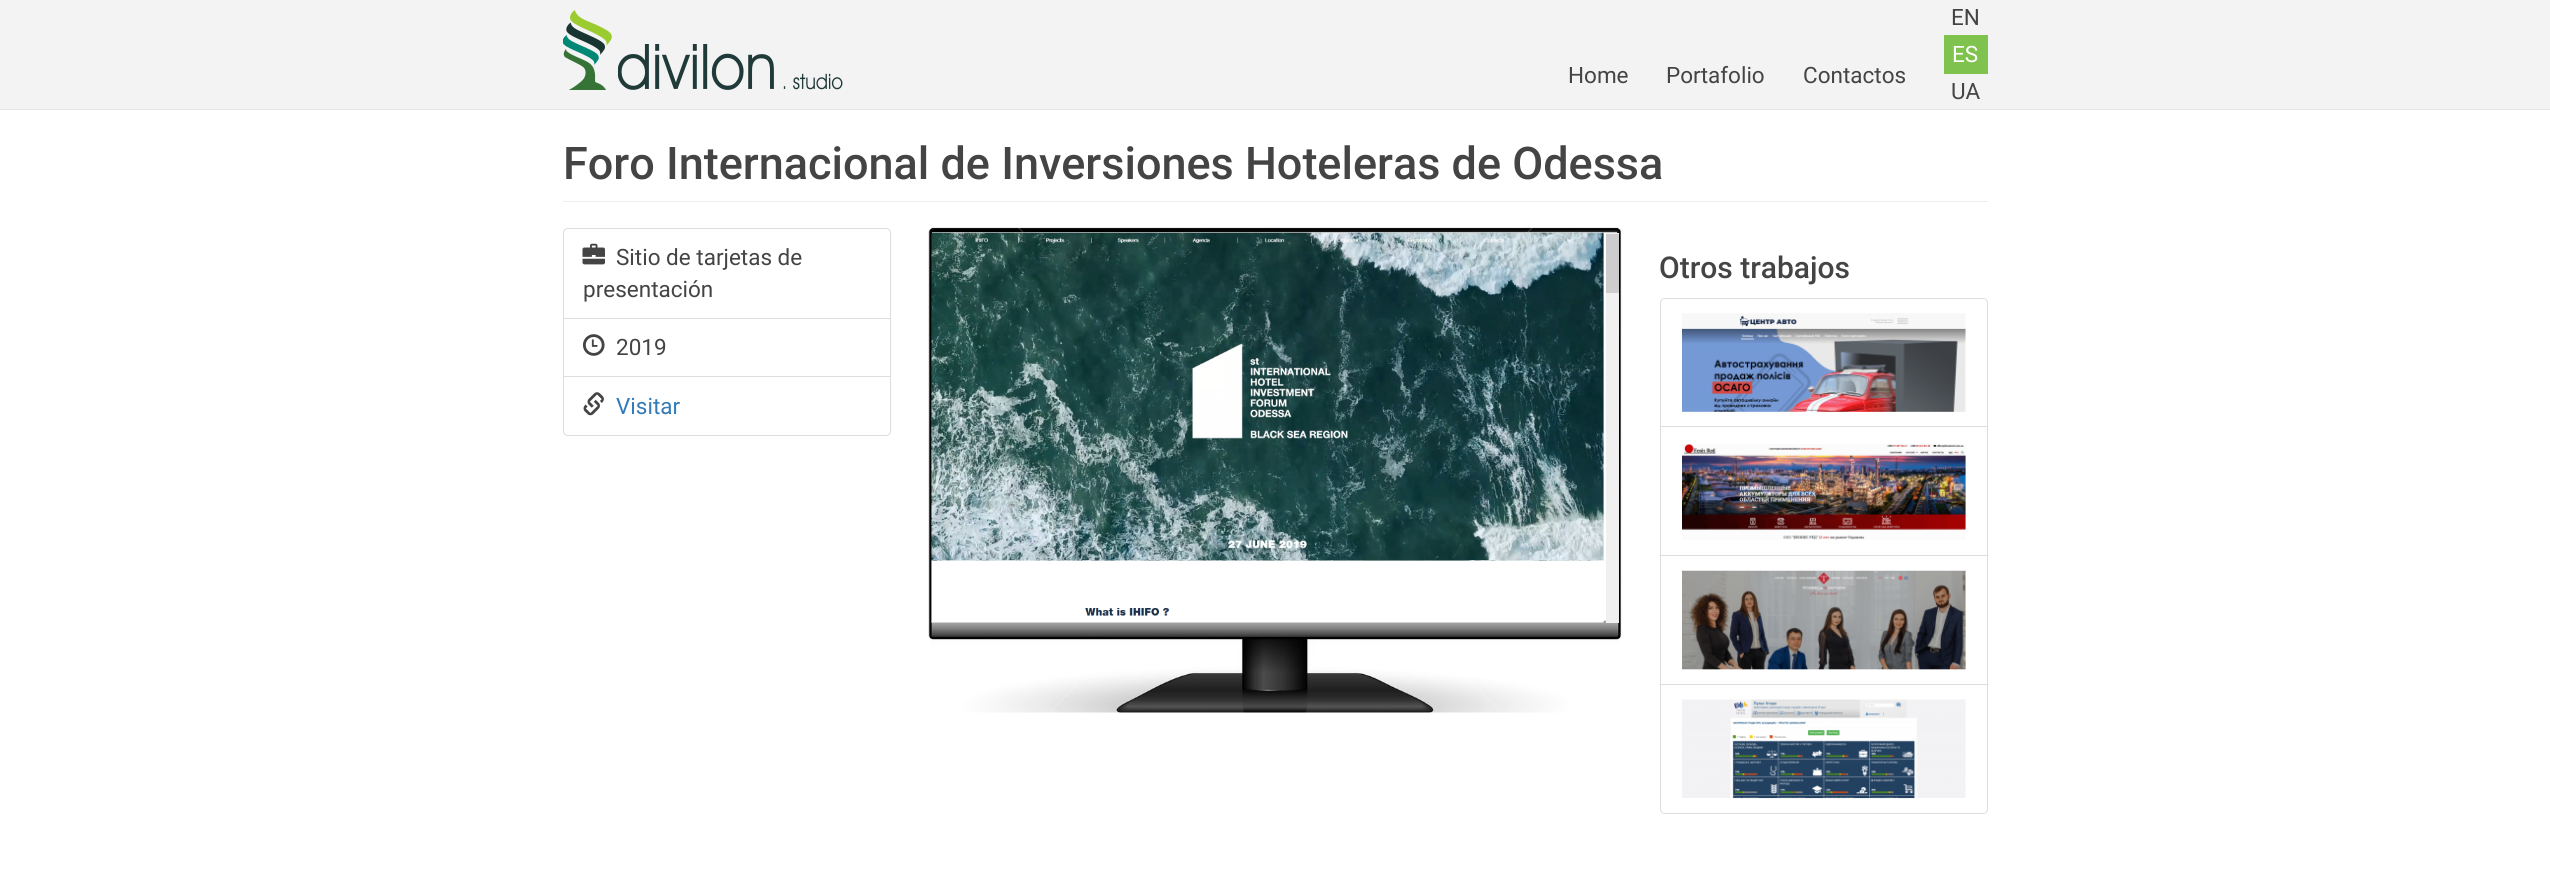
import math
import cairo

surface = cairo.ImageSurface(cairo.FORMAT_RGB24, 2550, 887)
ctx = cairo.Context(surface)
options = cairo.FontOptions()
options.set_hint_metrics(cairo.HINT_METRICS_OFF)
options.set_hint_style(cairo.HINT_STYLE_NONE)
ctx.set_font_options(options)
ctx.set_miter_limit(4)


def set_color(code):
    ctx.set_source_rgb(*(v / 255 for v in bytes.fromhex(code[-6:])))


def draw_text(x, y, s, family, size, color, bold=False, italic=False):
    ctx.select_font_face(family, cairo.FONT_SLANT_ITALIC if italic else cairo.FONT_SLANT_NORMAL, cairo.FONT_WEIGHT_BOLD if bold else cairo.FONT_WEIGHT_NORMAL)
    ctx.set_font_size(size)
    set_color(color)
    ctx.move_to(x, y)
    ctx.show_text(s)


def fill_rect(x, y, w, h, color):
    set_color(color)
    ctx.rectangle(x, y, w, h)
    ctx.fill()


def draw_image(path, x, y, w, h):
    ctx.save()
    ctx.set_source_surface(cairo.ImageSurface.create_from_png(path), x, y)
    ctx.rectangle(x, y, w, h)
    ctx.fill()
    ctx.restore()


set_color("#ffffff")
ctx.paint()
fill_rect(0, 0, 2550, 109, "#f3f3f3")
fill_rect(0, 109, 2550, 1, "#e7e7e7")
draw_image("assets/img1.png", 563, 10, 49, 80)
draw_image("assets/img2.png", 618, 44, 225, 46)
draw_text(1568, 83, "Home", "Roboto", 22.5, "#444444")
draw_text(1666, 83, "Portafolio", "Roboto", 22.5, "#444444")
draw_text(1803, 83, "Contactos", "Roboto", 22.5, "#444444")
draw_text(1951, 25, "EN", "Roboto", 22.5, "#444444")
fill_rect(1944, 35, 44, 39, "#7fc24e")
draw_text(1952, 62, "ES", "Roboto", 22.5, "#ffffff")
draw_text(1951, 99, "UA", "Roboto", 22.5, "#444444")
fill_rect(563, 201, 1425, 1, "#eeeeee")
draw_text(563, 179, "Foro Internacional de Inversiones Hoteleras de Odessa", "Roboto Medium", 45, "#444444")
ctx.new_path()
ctx.move_to(568, 228.5)
ctx.line_to(886, 228.5)
ctx.curve_to(888.5, 228.5, 890.5, 230.5, 890.5, 233)
ctx.line_to(890.5, 318.5)
ctx.line_to(563.5, 318.5)
ctx.line_to(563.5, 233)
ctx.curve_to(563.5, 230.5, 565.5, 228.5, 568, 228.5)
ctx.close_path()
set_color("#dddddd")
ctx.set_line_width(1)
ctx.stroke()
draw_image("assets/img3.png", 582, 243, 23, 22)
draw_text(616, 265, "Sitio de tarjetas de", "Roboto", 22.5, "#444444")
draw_text(583, 297, "presentación", "Roboto", 22.5, "#444444")
ctx.rectangle(563.5, 318.5, 327, 59)
set_color("#dddddd")
ctx.stroke()
draw_image("assets/img4.png", 582, 334, 23, 22)
draw_text(616, 355, "2019", "Roboto", 22.5, "#444444")
set_color("#ffffff")
ctx.new_path()
ctx.move_to(563.5, 376.5)
ctx.line_to(890.5, 376.5)
ctx.line_to(890.5, 431)
ctx.curve_to(890.5, 433.5, 888.5, 435.5, 886, 435.5)
ctx.line_to(568, 435.5)
ctx.curve_to(565.5, 435.5, 563.5, 433.5, 563.5, 431)
ctx.close_path()
ctx.fill_preserve()
set_color("#dddddd")
ctx.stroke()
draw_image("assets/img5.png", 583, 392, 21, 24)
draw_text(616, 414, "Visitar", "Roboto", 22.5, "#337ab7")
draw_image("assets/img6.png", 928, 227, 694, 486)
draw_image("assets/img7.png", 931, 232, 673, 391)
fill_rect(1606, 293, 13, 330, "#f0f0f0")
fill_rect(1606, 234, 13, 59, "#cdcdcd")
fill_rect(1606, 233, 13, 1, "#f0f0f0")
draw_text(1659, 278, "Otros trabajos", "Roboto Medium", 30, "#444444")
ctx.new_path()
ctx.move_to(1665, 298.5)
ctx.line_to(1983, 298.5)
ctx.curve_to(1985.5, 298.5, 1987.5, 300.5, 1987.5, 303)
ctx.line_to(1987.5, 427.5)
ctx.line_to(1660.5, 427.5)
ctx.line_to(1660.5, 303)
ctx.curve_to(1660.5, 300.5, 1662.5, 298.5, 1665, 298.5)
ctx.close_path()
set_color("#dddddd")
ctx.stroke()
draw_image("assets/img8.png", 1682, 313, 284, 99)
fill_rect(1661, 427, 326, 1, "#ffffff")
ctx.rectangle(1660.5, 426.5, 327, 129)
set_color("#dddddd")
ctx.stroke()
draw_image("assets/img9.png", 1682, 444, 284, 96)
ctx.rectangle(1660.5, 555.5, 327, 129)
ctx.stroke()
draw_image("assets/img10.png", 1682, 570, 284, 100)
set_color("#ffffff")
ctx.new_path()
ctx.move_to(1660.5, 684.5)
ctx.line_to(1987.5, 684.5)
ctx.line_to(1987.5, 809)
ctx.curve_to(1987.5, 811.5, 1985.5, 813.5, 1983, 813.5)
ctx.line_to(1665, 813.5)
ctx.curve_to(1662.5, 813.5, 1660.5, 811.5, 1660.5, 809)
ctx.close_path()
ctx.fill_preserve()
set_color("#dddddd")
ctx.stroke()
draw_image("assets/img11.png", 1682, 699, 284, 100)
surface.write_to_png("output.png")
